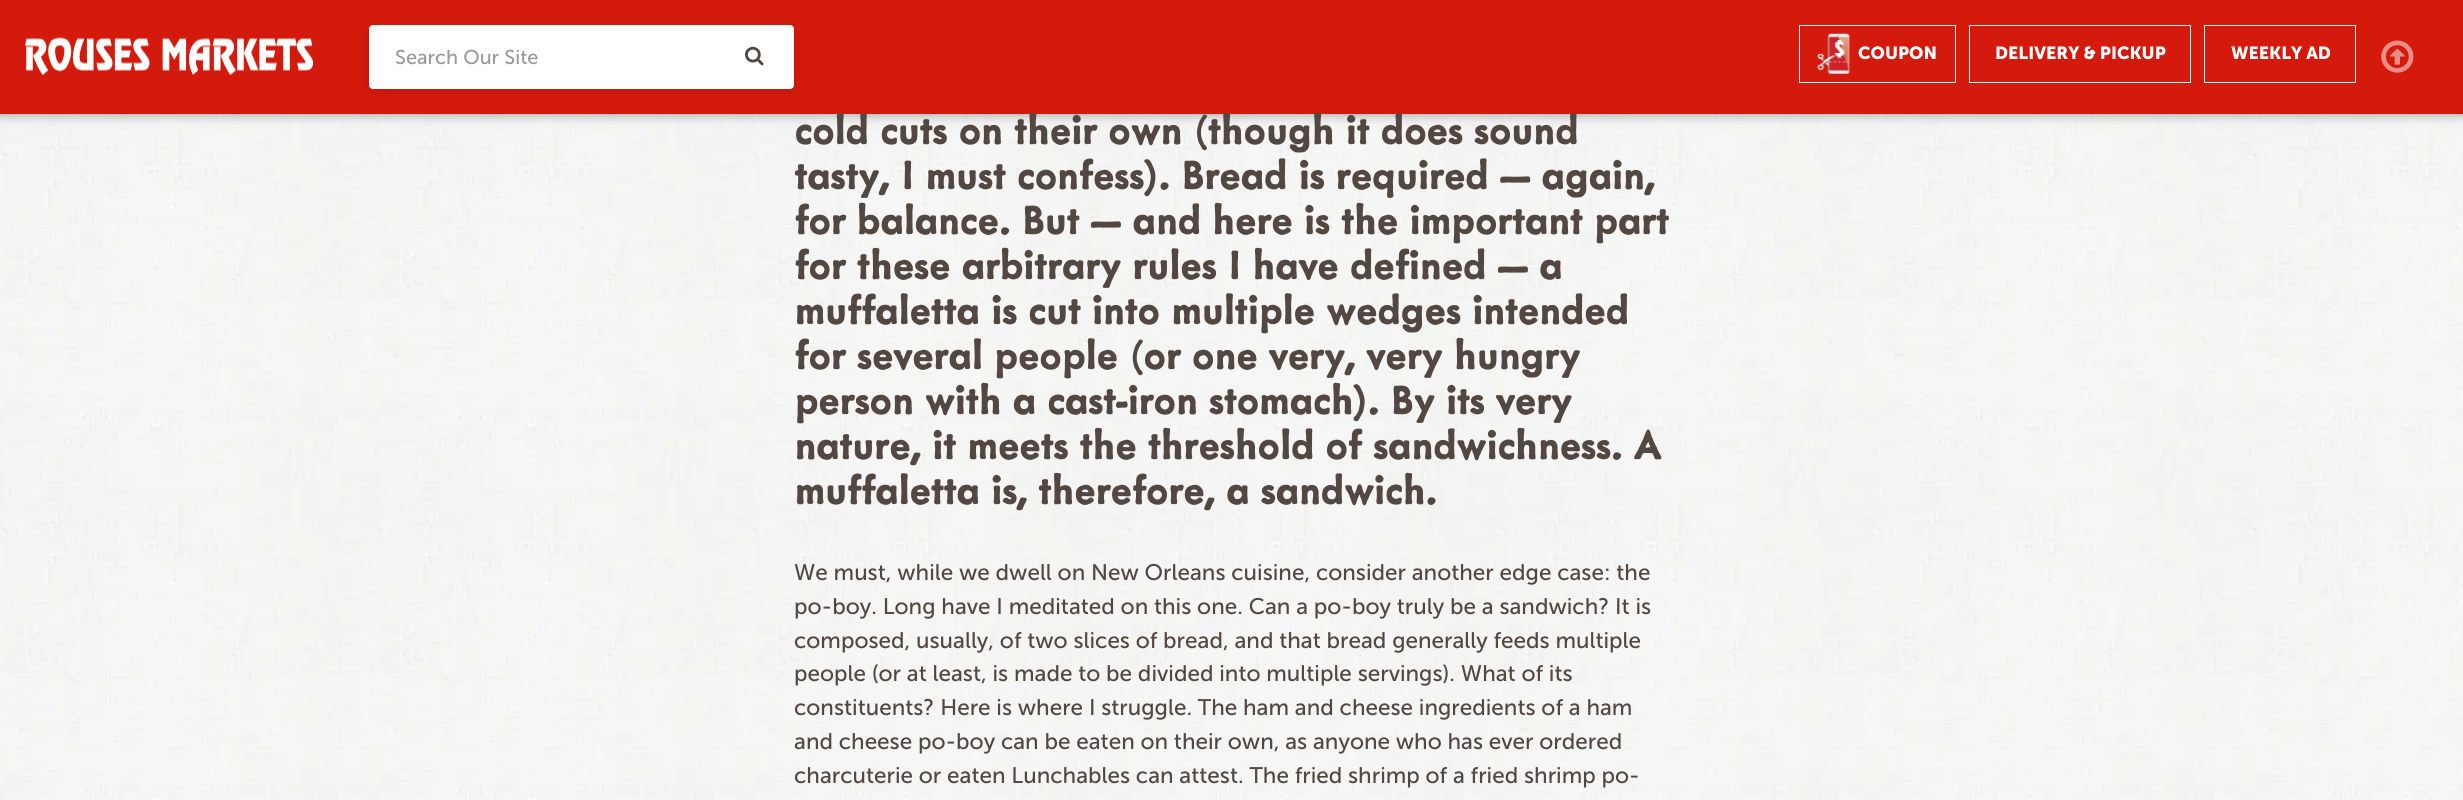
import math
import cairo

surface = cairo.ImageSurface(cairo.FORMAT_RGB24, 2463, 800)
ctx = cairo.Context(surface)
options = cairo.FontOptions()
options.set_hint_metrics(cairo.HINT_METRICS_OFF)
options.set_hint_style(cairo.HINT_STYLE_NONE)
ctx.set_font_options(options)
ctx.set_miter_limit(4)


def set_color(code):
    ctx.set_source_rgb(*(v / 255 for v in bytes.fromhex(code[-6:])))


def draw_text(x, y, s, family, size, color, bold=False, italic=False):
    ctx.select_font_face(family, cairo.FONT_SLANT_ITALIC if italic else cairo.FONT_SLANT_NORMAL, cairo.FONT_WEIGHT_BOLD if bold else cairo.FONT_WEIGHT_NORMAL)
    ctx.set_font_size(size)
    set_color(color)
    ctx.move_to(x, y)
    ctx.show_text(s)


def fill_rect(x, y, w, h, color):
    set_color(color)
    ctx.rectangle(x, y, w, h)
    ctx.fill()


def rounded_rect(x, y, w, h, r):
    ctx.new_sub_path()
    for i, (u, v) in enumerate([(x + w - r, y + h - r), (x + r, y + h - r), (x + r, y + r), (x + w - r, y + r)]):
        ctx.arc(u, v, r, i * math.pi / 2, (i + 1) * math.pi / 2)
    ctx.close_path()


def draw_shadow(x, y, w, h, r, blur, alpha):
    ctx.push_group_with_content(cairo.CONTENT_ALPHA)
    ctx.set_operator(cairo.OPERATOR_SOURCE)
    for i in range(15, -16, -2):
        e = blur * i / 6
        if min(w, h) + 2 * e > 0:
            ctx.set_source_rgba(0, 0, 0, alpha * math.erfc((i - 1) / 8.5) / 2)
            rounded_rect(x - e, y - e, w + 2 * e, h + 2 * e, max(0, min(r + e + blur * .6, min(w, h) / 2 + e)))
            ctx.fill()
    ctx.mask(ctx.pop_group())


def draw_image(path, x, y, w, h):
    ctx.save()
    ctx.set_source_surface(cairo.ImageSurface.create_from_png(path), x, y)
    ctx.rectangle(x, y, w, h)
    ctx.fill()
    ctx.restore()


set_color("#ffffff")
ctx.paint()
draw_image("assets/img1.png", 0, 114, 2463, 686)
set_color("#000000")
draw_shadow(0, 0, 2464, 114, 0, 6, 0.4)
fill_rect(0, 0, 2463, 114, "#d41a0d")
draw_image("assets/img2.png", 25, 37, 289, 39)
set_color("#000000")
draw_shadow(369, 28, 425, 63, 4, 6, 0.1)
set_color("#ffffff")
rounded_rect(369, 25, 425, 64, 4)
ctx.fill()
draw_text(395, 64, "Search Our Site", "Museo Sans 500", 20, "#999999")
draw_image("assets/img3.png", 745, 46, 19, 20)
ctx.rectangle(1799.5, 25.5, 156, 57)
set_color("#ffffff")
ctx.set_line_width(1)
ctx.stroke()
draw_image("assets/img4.png", 1817, 33, 33, 41)
draw_text(1858, 59, "COUPON", "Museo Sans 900", 17.5, "#ffffff", bold=True)
ctx.rectangle(1969.5, 25.5, 221, 57)
ctx.stroke()
draw_text(1995, 59, "DELIVERY & PICKUP", "Museo Sans 900", 17.5, "#ffffff", bold=True)
ctx.rectangle(2204.5, 25.5, 151, 57)
ctx.stroke()
draw_text(2231, 59, "WEEKLY AD", "Museo Sans 900", 17.5, "#ffffff", bold=True)
draw_image("assets/img5.png", 2381, 40, 33, 33)
draw_text(794, 144, "cold cuts on their own (though it does sound", "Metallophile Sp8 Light", 45, "#534741", bold=True)
draw_text(794, 189, "tasty, I must confess). Bread is required — again,", "Metallophile Sp8 Light", 45, "#534741", bold=True)
draw_text(794, 234, "for balance. But — and here is the important part", "Metallophile Sp8 Light", 45, "#534741", bold=True)
draw_text(794, 279, "for these arbitrary rules I have defined — a", "Metallophile Sp8 Light", 45, "#534741", bold=True)
draw_text(794, 324, "muffaletta is cut into multiple wedges intended", "Metallophile Sp8 Light", 45, "#534741", bold=True)
draw_text(794, 369, "for several people (or one very, very hungry", "Metallophile Sp8 Light", 45, "#534741", bold=True)
draw_text(794, 414, "person with a cast-iron stomach). By its very", "Metallophile Sp8 Light", 45, "#534741", bold=True)
draw_text(794, 459, "nature, it meets the threshold of sandwichness. A", "Metallophile Sp8 Light", 45, "#534741", bold=True)
draw_text(794, 504, "muffaletta is, therefore, a sandwich.", "Metallophile Sp8 Light", 45, "#534741", bold=True)
draw_text(794, 580, "We must, while we dwell on New Orleans cuisine, consider another edge case: the", "Museo Sans 500", 22.5, "#534741")
draw_text(794, 614, "po-boy. Long have I meditated on this one. Can a po-boy truly be a sandwich? It is", "Museo Sans 500", 22.5, "#534741")
draw_text(794, 648, "composed, usually, of two slices of bread, and that bread generally feeds multiple", "Museo Sans 500", 22.5, "#534741")
draw_text(794, 681, "people (or at least, is made to be divided into multiple servings). What of its", "Museo Sans 500", 22.5, "#534741")
draw_text(794, 715, "constituents? Here is where I struggle. The ham and cheese ingredients of a ham", "Museo Sans 500", 22.5, "#534741")
draw_text(794, 749, "and cheese po-boy can be eaten on their own, as anyone who has ever ordered", "Museo Sans 500", 22.5, "#534741")
draw_text(794, 783, "charcuterie or eaten Lunchables can attest. The fried shrimp of a fried shrimp po-", "Museo Sans 500", 22.5, "#534741")
surface.write_to_png("output.png")
